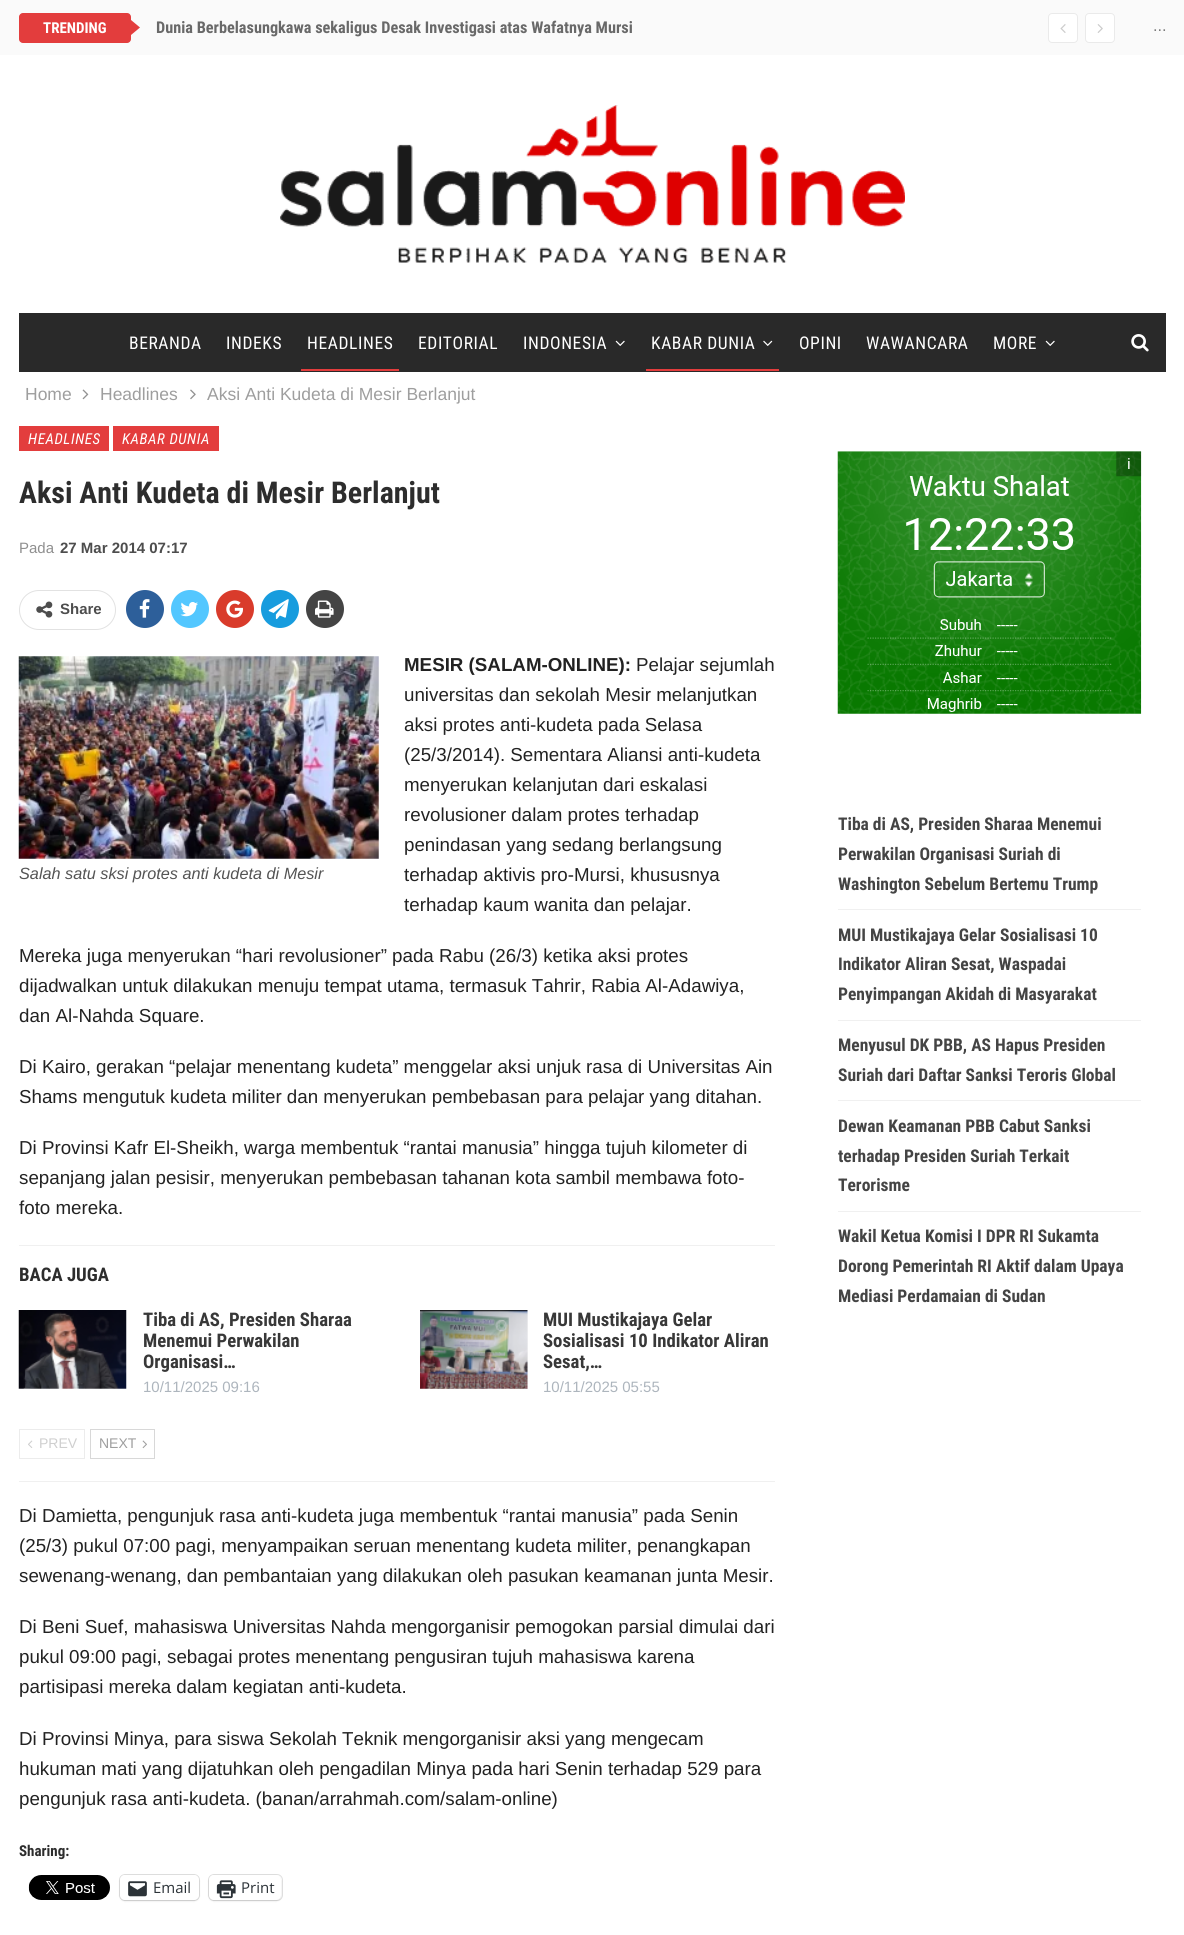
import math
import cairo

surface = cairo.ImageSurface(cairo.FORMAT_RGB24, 1184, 1935)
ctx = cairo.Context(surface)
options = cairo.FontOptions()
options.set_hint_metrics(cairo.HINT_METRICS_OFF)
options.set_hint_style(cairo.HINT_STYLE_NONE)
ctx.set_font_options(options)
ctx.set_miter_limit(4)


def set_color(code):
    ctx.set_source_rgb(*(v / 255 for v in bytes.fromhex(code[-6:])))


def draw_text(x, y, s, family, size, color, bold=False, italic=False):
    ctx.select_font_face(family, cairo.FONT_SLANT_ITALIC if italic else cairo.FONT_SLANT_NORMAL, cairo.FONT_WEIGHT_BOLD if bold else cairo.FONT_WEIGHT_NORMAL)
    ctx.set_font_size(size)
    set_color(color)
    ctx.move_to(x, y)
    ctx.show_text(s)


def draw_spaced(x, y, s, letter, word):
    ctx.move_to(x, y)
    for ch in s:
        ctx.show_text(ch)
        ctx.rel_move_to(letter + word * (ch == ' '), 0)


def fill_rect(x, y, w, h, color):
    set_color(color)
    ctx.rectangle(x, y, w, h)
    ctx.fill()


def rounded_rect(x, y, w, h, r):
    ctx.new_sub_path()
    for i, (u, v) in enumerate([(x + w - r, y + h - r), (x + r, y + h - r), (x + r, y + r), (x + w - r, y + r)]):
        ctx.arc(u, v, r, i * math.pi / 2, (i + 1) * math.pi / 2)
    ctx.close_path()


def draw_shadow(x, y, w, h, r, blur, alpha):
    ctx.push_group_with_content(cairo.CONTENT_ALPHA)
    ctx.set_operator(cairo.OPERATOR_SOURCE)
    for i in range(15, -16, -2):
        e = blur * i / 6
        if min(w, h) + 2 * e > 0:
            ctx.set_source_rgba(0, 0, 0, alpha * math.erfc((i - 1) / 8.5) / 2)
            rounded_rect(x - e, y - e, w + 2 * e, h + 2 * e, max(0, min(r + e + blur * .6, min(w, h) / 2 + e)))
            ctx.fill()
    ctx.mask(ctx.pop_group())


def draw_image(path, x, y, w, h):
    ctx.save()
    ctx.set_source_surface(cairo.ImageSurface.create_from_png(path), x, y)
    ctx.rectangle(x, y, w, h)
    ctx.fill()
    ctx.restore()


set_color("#ffffff")
ctx.paint()
fill_rect(0, 0, 1184, 55, "#fafafa")
set_color("#e33d3d")
rounded_rect(19, 13, 112, 30, 4)
ctx.fill()
draw_text(43, 33, "TRENDING", "Roboto Condensed", 15, "#ffffff", bold=True)
set_color("#e33d3d")
ctx.new_path()
ctx.move_to(131, 35)
ctx.line_to(131, 20)
ctx.line_to(140, 27.5)
ctx.close_path()
ctx.fill()
draw_text(156, 33, "Dunia Berbelasungkawa sekaligus Desak Investigasi atas Wafatnya Mursi", "Roboto Condensed", 16.25, "#696969", bold=True)
set_color("#ffffff")
rounded_rect(1048.5, 13.5, 29, 29, 3.5)
ctx.fill_preserve()
set_color("#eaeaea")
ctx.set_line_width(1)
ctx.stroke()
draw_image("assets/img1.png", 1060, 24, 6, 9)
set_color("#ffffff")
rounded_rect(1085.5, 13.5, 29, 29, 3.5)
ctx.fill_preserve()
set_color("#eaeaea")
ctx.stroke()
draw_image("assets/img2.png", 1097, 24, 6, 9)
draw_text(1153, 31, "...", "Liberation Sans", 16.25, "#7b7b7b")
draw_image("assets/img3.png", 280, 105, 625, 158)
fill_rect(19, 313, 1147, 59, "#292929")
ctx.select_font_face("Roboto Condensed")
ctx.set_font_size(17.5)
set_color("#ffffff")
draw_spaced(129, 349, "BERANDA", 0.6, 0)
draw_spaced(226, 349, "INDEKS", 0.6, 0)
draw_spaced(307, 349, "HEADLINES", 0.6, 0)
fill_rect(301, 369, 98, 2, "#e33d3d")
set_color("#ffffff")
draw_spaced(418, 349, "EDITORIAL", 0.6, 0)
draw_spaced(523, 349, "INDONESIA", 0.6, 0)
draw_image("assets/img4.png", 615, 340, 10, 6)
draw_spaced(651, 349, "KABAR DUNIA", 0.6, 0)
draw_image("assets/img5.png", 763, 340, 10, 6)
fill_rect(646, 369, 133, 2, "#e33d3d")
set_color("#ffffff")
draw_spaced(799, 349, "OPINI", 0.6, 0)
draw_spaced(866, 349, "WAWANCARA", 0.6, 0)
draw_spaced(993, 349, "MORE", 0.6, 0)
draw_image("assets/img4.png", 1045, 340, 10, 6)
draw_image("assets/img6.png", 1131, 334, 18, 18)
draw_text(25, 400, "Home", "Liberation Sans", 17.5, "#9e9e9e")
draw_image("assets/img7.png", 82, 389, 7, 11)
draw_text(100, 400, "Headlines", "Liberation Sans", 17.5, "#9e9e9e")
draw_image("assets/img8.png", 190, 389, 6, 11)
draw_text(207, 400, "Aksi Anti Kudeta di Mesir Berlanjut", "Liberation Sans", 17.5, "#9e9e9e")
fill_rect(19, 426, 90, 25, "#e33d3d")
ctx.select_font_face("Roboto Condensed", cairo.FONT_SLANT_ITALIC)
ctx.set_font_size(15)
set_color("#ffffff")
draw_spaced(28, 444, "HEADLINES", 0.6, 0)
fill_rect(113, 426, 106, 25, "#e33d3d")
set_color("#ffffff")
draw_spaced(122, 444, "KABAR DUNIA", 0.6, 0)
draw_text(19, 503, "Aksi Anti Kudeta di Mesir Berlanjut", "Roboto Condensed", 30, "#2d2d2d", bold=True)
draw_text(19, 553, "Pada", "Liberation Sans", 15, "#8f8f8f")
draw_text(60, 553, "27 Mar 2014 07:17", "Liberation Sans", 15, "#4d4d4d", bold=True)
rounded_rect(19.5, 590.5, 96, 39, 19.5)
set_color("#e2e2e2")
ctx.stroke()
draw_image("assets/img9.png", 36, 601, 17, 17)
draw_text(60, 614, "Share", "Liberation Sans", 15, "#4d4d4d", bold=True)
set_color("#2d5f9a")
ctx.new_path()
ctx.arc(145, 609, 19, 0, 2 * math.pi)
ctx.fill()
draw_image("assets/img10.png", 139, 599, 11, 19)
set_color("#53c7ff")
ctx.arc(190, 609, 19, 0, 2 * math.pi)
ctx.fill()
draw_image("assets/img11.png", 180, 602, 18, 15)
set_color("#d93b2b")
ctx.arc(235, 609, 19, 0, 2 * math.pi)
ctx.fill()
draw_image("assets/img12.png", 226, 600, 17, 18)
set_color("#179cde")
ctx.arc(280, 609, 19, 0, 2 * math.pi)
ctx.fill()
draw_image("assets/img13.png", 268, 599, 21, 21)
set_color("#444444")
ctx.arc(325, 609, 19, 0, 2 * math.pi)
ctx.fill()
draw_image("assets/img14.png", 315, 600, 19, 18)
draw_image("assets/img15.png", 18, 656, 361, 203)
draw_text(19, 879, "Salah satu sksi protes anti kudeta di Mesir", "Liberation Sans", 16.25, "#545454", italic=True)
draw_text(404, 671, "MESIR (SALAM-ONLINE):", "Liberation Sans", 18.75, "#222222", bold=True)
draw_text(636, 671, "Pelajar sejumlah", "Liberation Sans", 18.75, "#222222")
draw_text(404, 701, "universitas dan sekolah Mesir melanjutkan", "Liberation Sans", 18.75, "#222222")
draw_text(404, 731, "aksi protes anti-kudeta pada Selasa", "Liberation Sans", 18.75, "#222222")
draw_text(404, 761, "(25/3/2014). Sementara Aliansi anti-kudeta", "Liberation Sans", 18.75, "#222222")
draw_text(404, 791, "menyerukan kelanjutan dari eskalasi", "Liberation Sans", 18.75, "#222222")
draw_text(404, 821, "revolusioner dalam protes terhadap", "Liberation Sans", 18.75, "#222222")
draw_text(404, 851, "penindasan yang sedang berlangsung", "Liberation Sans", 18.75, "#222222")
draw_text(404, 881, "terhadap aktivis pro-Mursi, khususnya", "Liberation Sans", 18.75, "#222222")
draw_text(404, 911, "terhadap kaum wanita dan pelajar.", "Liberation Sans", 18.75, "#222222")
draw_text(19, 962, "Mereka juga menyerukan “hari revolusioner” pada Rabu (26/3) ketika aksi protes", "Liberation Sans", 18.75, "#222222")
draw_text(19, 992, "dijadwalkan untuk dilakukan menuju tempat utama, termasuk Tahrir, Rabia Al-Adawiya,", "Liberation Sans", 18.75, "#222222")
draw_text(19, 1022, "dan Al-Nahda Square.", "Liberation Sans", 18.75, "#222222")
draw_text(19, 1073, "Di Kairo, gerakan “pelajar menentang kudeta” menggelar aksi unjuk rasa di Universitas Ain", "Liberation Sans", 18.75, "#222222")
draw_text(19, 1103, "Shams mengutuk kudeta militer dan menyerukan pembebasan para pelajar yang ditahan.", "Liberation Sans", 18.75, "#222222")
draw_text(19, 1154, "Di Provinsi Kafr El-Sheikh, warga membentuk “rantai manusia” hingga tujuh kilometer di", "Liberation Sans", 18.75, "#222222")
draw_text(19, 1184, "sepanjang jalan pesisir, menyerukan pembebasan tahanan kota sambil membawa foto-", "Liberation Sans", 18.75, "#222222")
draw_text(19, 1214, "foto mereka.", "Liberation Sans", 18.75, "#222222")
fill_rect(19, 1245, 756, 1, "#f0f0f0")
fill_rect(19, 1481, 756, 1, "#f0f0f0")
draw_text(19, 1281, "BACA JUGA", "Roboto Condensed", 18.75, "#2d2d2d", bold=True)
draw_image("assets/img16.png", 18, 1310, 109, 79)
draw_text(143, 1326, "Tiba di AS, Presiden Sharaa", "Roboto Condensed", 18.75, "#383838", bold=True)
draw_text(143, 1347, "Menemui Perwakilan", "Roboto Condensed", 18.75, "#383838", bold=True)
draw_text(143, 1368, "Organisasi…", "Roboto Condensed", 18.75, "#383838", bold=True)
draw_text(143, 1392, "10/11/2025 09:16", "Liberation Sans", 15, "#adb5bd")
fill_rect(420, 1310, 108, 79, "#f5f5f5")
draw_image("assets/img17.png", 420, 1310, 108, 79)
draw_text(543, 1326, "MUI Mustikajaya Gelar", "Roboto Condensed", 18.75, "#383838", bold=True)
draw_text(543, 1347, "Sosialisasi 10 Indikator Aliran", "Roboto Condensed", 18.75, "#383838", bold=True)
draw_text(543, 1368, "Sesat,…", "Roboto Condensed", 18.75, "#383838", bold=True)
draw_text(543, 1392, "10/11/2025 05:55", "Liberation Sans", 15, "#adb5bd")
ctx.rectangle(19.5, 1429.5, 65, 29)
set_color("#ececec")
ctx.stroke()
draw_image("assets/img18.png", 28, 1440, 5, 8)
draw_text(39, 1448, "PREV", "Liberation Sans", 14, "#cfcfcf")
ctx.rectangle(90.5, 1429.5, 64, 29)
set_color("#d8d8d8")
ctx.stroke()
draw_text(99, 1448, "NEXT", "Liberation Sans", 14, "#9e9e9e")
draw_image("assets/img19.png", 142, 1440, 5, 9)
draw_text(19, 1522, "Di Damietta, pengunjuk rasa anti-kudeta juga membentuk “rantai manusia” pada Senin", "Liberation Sans", 18.75, "#222222")
draw_text(19, 1552, "(25/3) pukul 07:00 pagi, menyampaikan seruan menentang kudeta militer, penangkapan", "Liberation Sans", 18.75, "#222222")
draw_text(19, 1582, "sewenang-wenang, dan pembantaian yang dilakukan oleh pasukan keamanan junta Mesir.", "Liberation Sans", 18.75, "#222222")
draw_text(19, 1633, "Di Beni Suef, mahasiswa Universitas Nahda mengorganisir pemogokan parsial dimulai dari", "Liberation Sans", 18.75, "#222222")
draw_text(19, 1663, "pukul 09:00 pagi, sebagai protes menentang pengusiran tujuh mahasiswa karena", "Liberation Sans", 18.75, "#222222")
draw_text(19, 1693, "partisipasi mereka dalam kegiatan anti-kudeta.", "Liberation Sans", 18.75, "#222222")
draw_text(19, 1745, "Di Provinsi Minya, para siswa Sekolah Teknik mengorganisir aksi yang mengecam", "Liberation Sans", 18.75, "#222222")
draw_text(19, 1775, "hukuman mati yang dijatuhkan oleh pengadilan Minya pada hari Senin terhadap 529 para", "Liberation Sans", 18.75, "#222222")
draw_text(19, 1805, "pengunjuk rasa anti-kudeta. (banan/arrahmah.com/salam-online)", "Liberation Sans", 18.75, "#222222")
draw_text(19, 1856, "Sharing:", "Roboto Condensed", 15, "#2d2d2d", bold=True)
draw_image("assets/img20.png", 28, 1875, 82, 25)
rounded_rect(119.5, 1874.5, 80, 26, 5.5)
set_color("#e0e0e0")
ctx.stroke()
set_color("#000000")
draw_shadow(120, 1876, 79, 25, 5, 1, 0.12)
set_color("#ffffff")
rounded_rect(120, 1875, 79, 25, 5)
ctx.fill()
draw_image("assets/img21.png", 128, 1881, 19, 16)
draw_text(153, 1893, "Email", "Open Sans", 15, "#2c3338")
rounded_rect(208.5, 1874.5, 74, 26, 5.5)
set_color("#e0e0e0")
ctx.stroke()
set_color("#000000")
draw_shadow(209, 1876, 72, 25, 5, 1, 0.12)
set_color("#ffffff")
rounded_rect(209, 1875, 72, 25, 5)
ctx.fill()
draw_image("assets/img22.png", 216, 1880, 20, 19)
draw_text(241, 1893, "Print", "Open Sans", 15, "#2c3338")
draw_image("assets/img23.png", 837, 451, 305, 263)
fill_rect(838, 909, 303, 1, "#f0f0f0")
draw_text(838, 830, "Tiba di AS, Presiden Sharaa Menemui", "Roboto Condensed", 17.5, "#444444", bold=True)
draw_text(838, 860, "Perwakilan Organisasi Suriah di", "Roboto Condensed", 17.5, "#444444", bold=True)
draw_text(838, 890, "Washington Sebelum Bertemu Trump", "Roboto Condensed", 17.5, "#444444", bold=True)
fill_rect(838, 1020, 303, 1, "#f0f0f0")
draw_text(838, 941, "MUI Mustikajaya Gelar Sosialisasi 10", "Roboto Condensed", 17.5, "#444444", bold=True)
draw_text(838, 970, "Indikator Aliran Sesat, Waspadai", "Roboto Condensed", 17.5, "#444444", bold=True)
draw_text(838, 1000, "Penyimpangan Akidah di Masyarakat", "Roboto Condensed", 17.5, "#444444", bold=True)
fill_rect(838, 1100, 303, 1, "#f0f0f0")
draw_text(838, 1051, "Menyusul DK PBB, AS Hapus Presiden", "Roboto Condensed", 17.5, "#444444", bold=True)
draw_text(838, 1081, "Suriah dari Daftar Sanksi Teroris Global", "Roboto Condensed", 17.5, "#444444", bold=True)
fill_rect(838, 1211, 303, 1, "#f0f0f0")
draw_text(838, 1132, "Dewan Keamanan PBB Cabut Sanksi", "Roboto Condensed", 17.5, "#444444", bold=True)
draw_text(838, 1162, "terhadap Presiden Suriah Terkait", "Roboto Condensed", 17.5, "#444444", bold=True)
draw_text(838, 1191, "Terorisme", "Roboto Condensed", 17.5, "#444444", bold=True)
draw_text(838, 1242, "Wakil Ketua Komisi I DPR RI Sukamta", "Roboto Condensed", 17.5, "#444444", bold=True)
draw_text(838, 1272, "Dorong Pemerintah RI Aktif dalam Upaya", "Roboto Condensed", 17.5, "#444444", bold=True)
draw_text(838, 1302, "Mediasi Perdamaian di Sudan", "Roboto Condensed", 17.5, "#444444", bold=True)
surface.write_to_png("output.png")
